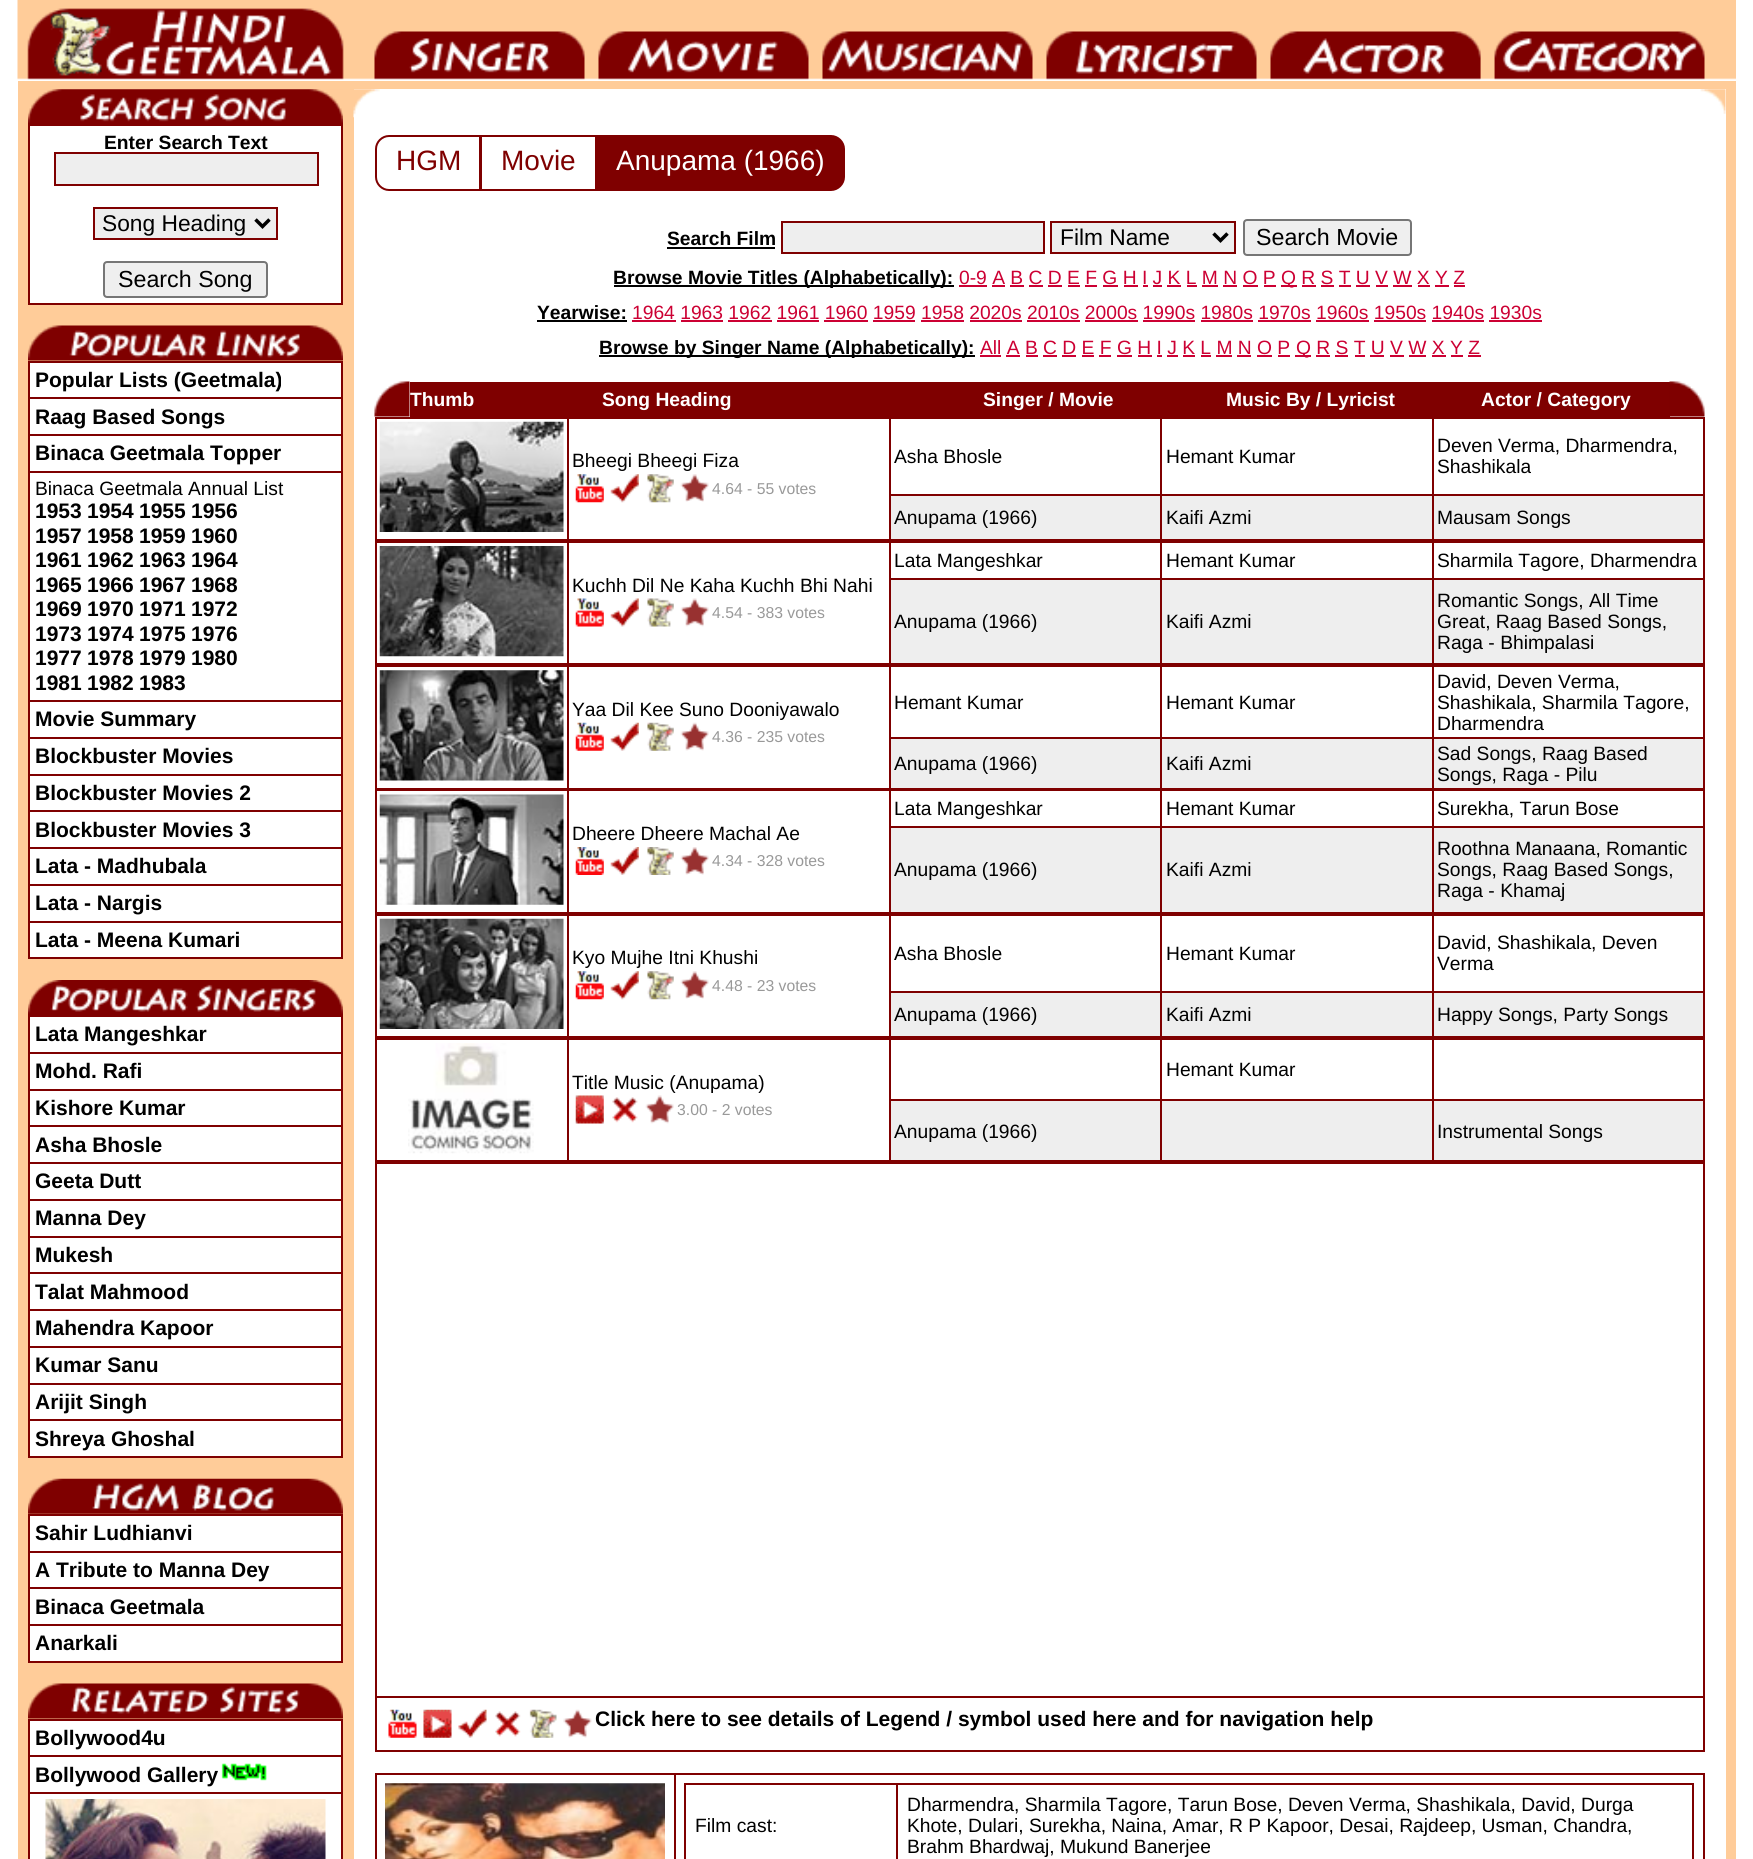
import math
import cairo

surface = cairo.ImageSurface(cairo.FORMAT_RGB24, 1753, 1859)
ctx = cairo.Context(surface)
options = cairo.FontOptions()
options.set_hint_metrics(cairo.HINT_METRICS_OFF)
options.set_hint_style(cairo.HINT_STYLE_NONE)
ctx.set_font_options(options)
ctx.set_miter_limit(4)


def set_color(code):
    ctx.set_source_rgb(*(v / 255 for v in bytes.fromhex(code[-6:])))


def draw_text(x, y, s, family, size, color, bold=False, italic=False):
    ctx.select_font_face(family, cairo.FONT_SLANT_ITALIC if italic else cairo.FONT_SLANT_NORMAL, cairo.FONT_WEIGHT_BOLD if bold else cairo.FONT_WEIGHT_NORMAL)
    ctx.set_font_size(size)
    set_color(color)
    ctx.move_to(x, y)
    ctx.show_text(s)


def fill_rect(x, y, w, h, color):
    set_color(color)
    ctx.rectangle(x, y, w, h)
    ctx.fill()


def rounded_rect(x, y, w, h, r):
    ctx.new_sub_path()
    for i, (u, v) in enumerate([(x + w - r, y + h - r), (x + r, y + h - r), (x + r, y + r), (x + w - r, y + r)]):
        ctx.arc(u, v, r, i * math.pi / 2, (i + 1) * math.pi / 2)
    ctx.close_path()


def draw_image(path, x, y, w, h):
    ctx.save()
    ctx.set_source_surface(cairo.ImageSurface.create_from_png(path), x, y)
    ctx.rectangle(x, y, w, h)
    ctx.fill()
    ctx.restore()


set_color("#ffffff")
ctx.paint()
draw_image("assets/img1.png", 17, 0, 1719, 80)
fill_rect(18, 81, 1718, 8, "#ffcc99")
fill_rect(18, 89, 10, 1770, "#ffcc99")
fill_rect(28, 89, 315, 1630, "#ffcc99")
draw_image("assets/img2.png", 28, 89, 315, 35)
fill_rect(30, 126, 311, 177, "#ffffff")
fill_rect(28, 124, 315, 2, "#7f0000")
fill_rect(341, 124, 2, 181, "#7f0000")
fill_rect(28, 303, 315, 2, "#7f0000")
fill_rect(28, 124, 2, 181, "#7f0000")
draw_text(104, 149, "Enter Search Text", "Liberation Sans", 19.25, "#000000", bold=True)
set_color("#eeeeee")
ctx.rectangle(55, 153, 263, 32)
ctx.fill_preserve()
set_color("#7f0000")
ctx.stroke()
set_color("#eeeeee")
ctx.rectangle(94, 208, 183, 31)
ctx.fill_preserve()
set_color("#7f0000")
ctx.stroke()
ctx.new_path()
ctx.move_to(255.5, 219.5)
ctx.line_to(262.5, 226.5)
ctx.line_to(269.5, 219.5)
set_color("#000000")
ctx.set_line_width(3.5)
ctx.stroke()
draw_text(102, 231, "Song Heading", "Liberation Sans", 22.75, "#000000")
set_color("#efefef")
rounded_rect(104, 262, 163, 35, 3)
ctx.fill_preserve()
set_color("#767676")
ctx.set_line_width(2)
ctx.stroke()
draw_text(118, 287, "Search Song", "Liberation Sans", 23.25, "#000000")
draw_image("assets/img3.png", 28, 325, 315, 36)
fill_rect(30, 363, 311, 594, "#ffffff")
fill_rect(28, 361, 315, 2, "#7f0000")
fill_rect(341, 361, 2, 598, "#7f0000")
fill_rect(28, 957, 315, 2, "#7f0000")
fill_rect(28, 361, 2, 598, "#7f0000")
draw_text(35, 387, "Popular Lists (Geetmala)", "Liberation Sans", 21, "#000000", bold=True)
fill_rect(28, 397, 315, 2, "#7f0000")
draw_text(35, 424, "Raag Based Songs", "Liberation Sans", 21, "#000000", bold=True)
fill_rect(28, 434, 315, 2, "#7f0000")
draw_text(35, 460, "Binaca Geetmala Topper", "Liberation Sans", 21, "#000000", bold=True)
fill_rect(28, 471, 315, 2, "#7f0000")
draw_text(35, 495, "Binaca Geetmala Annual List", "Liberation Sans", 19.25, "#000000")
draw_text(35, 518, "1953", "Liberation Sans", 21, "#000000", bold=True)
draw_text(87, 518, "1954", "Liberation Sans", 21, "#000000", bold=True)
draw_text(139, 518, "1955", "Liberation Sans", 21, "#000000", bold=True)
draw_text(191, 518, "1956", "Liberation Sans", 21, "#000000", bold=True)
draw_text(35, 543, "1957", "Liberation Sans", 21, "#000000", bold=True)
draw_text(87, 543, "1958", "Liberation Sans", 21, "#000000", bold=True)
draw_text(139, 543, "1959", "Liberation Sans", 21, "#000000", bold=True)
draw_text(191, 543, "1960", "Liberation Sans", 21, "#000000", bold=True)
draw_text(35, 567, "1961", "Liberation Sans", 21, "#000000", bold=True)
draw_text(87, 567, "1962", "Liberation Sans", 21, "#000000", bold=True)
draw_text(139, 567, "1963", "Liberation Sans", 21, "#000000", bold=True)
draw_text(191, 567, "1964", "Liberation Sans", 21, "#000000", bold=True)
draw_text(35, 592, "1965", "Liberation Sans", 21, "#000000", bold=True)
draw_text(87, 592, "1966", "Liberation Sans", 21, "#000000", bold=True)
draw_text(139, 592, "1967", "Liberation Sans", 21, "#000000", bold=True)
draw_text(191, 592, "1968", "Liberation Sans", 21, "#000000", bold=True)
draw_text(35, 616, "1969", "Liberation Sans", 21, "#000000", bold=True)
draw_text(87, 616, "1970", "Liberation Sans", 21, "#000000", bold=True)
draw_text(139, 616, "1971", "Liberation Sans", 21, "#000000", bold=True)
draw_text(191, 616, "1972", "Liberation Sans", 21, "#000000", bold=True)
draw_text(35, 641, "1973", "Liberation Sans", 21, "#000000", bold=True)
draw_text(87, 641, "1974", "Liberation Sans", 21, "#000000", bold=True)
draw_text(139, 641, "1975", "Liberation Sans", 21, "#000000", bold=True)
draw_text(191, 641, "1976", "Liberation Sans", 21, "#000000", bold=True)
draw_text(35, 665, "1977", "Liberation Sans", 21, "#000000", bold=True)
draw_text(87, 665, "1978", "Liberation Sans", 21, "#000000", bold=True)
draw_text(139, 665, "1979", "Liberation Sans", 21, "#000000", bold=True)
draw_text(191, 665, "1980", "Liberation Sans", 21, "#000000", bold=True)
draw_text(35, 690, "1981", "Liberation Sans", 21, "#000000", bold=True)
draw_text(87, 690, "1982", "Liberation Sans", 21, "#000000", bold=True)
draw_text(139, 690, "1983", "Liberation Sans", 21, "#000000", bold=True)
fill_rect(28, 700, 315, 2, "#7f0000")
draw_text(35, 726, "Movie Summary", "Liberation Sans", 21, "#000000", bold=True)
fill_rect(28, 737, 315, 2, "#7f0000")
draw_text(35, 763, "Blockbuster Movies", "Liberation Sans", 21, "#000000", bold=True)
fill_rect(28, 774, 315, 2, "#7f0000")
draw_text(35, 800, "Blockbuster Movies 2", "Liberation Sans", 21, "#000000", bold=True)
fill_rect(28, 810, 315, 2, "#7f0000")
draw_text(35, 837, "Blockbuster Movies 3", "Liberation Sans", 21, "#000000", bold=True)
fill_rect(28, 847, 315, 2, "#7f0000")
draw_text(35, 873, "Lata - Madhubala", "Liberation Sans", 21, "#000000", bold=True)
fill_rect(28, 884, 315, 2, "#7f0000")
draw_text(35, 910, "Lata - Nargis", "Liberation Sans", 21, "#000000", bold=True)
fill_rect(28, 921, 315, 2, "#7f0000")
draw_text(35, 947, "Lata - Meena Kumari", "Liberation Sans", 21, "#000000", bold=True)
draw_image("assets/img4.png", 28, 980, 315, 35)
fill_rect(30, 1017, 311, 439, "#ffffff")
fill_rect(28, 1015, 315, 2, "#7f0000")
fill_rect(341, 1015, 2, 443, "#7f0000")
fill_rect(28, 1456, 315, 2, "#7f0000")
fill_rect(28, 1015, 2, 443, "#7f0000")
draw_text(35, 1041, "Lata Mangeshkar", "Liberation Sans", 21, "#000000", bold=True)
fill_rect(28, 1052, 315, 2, "#7f0000")
draw_text(35, 1078, "Mohd. Rafi", "Liberation Sans", 21, "#000000", bold=True)
fill_rect(28, 1089, 315, 2, "#7f0000")
draw_text(35, 1115, "Kishore Kumar", "Liberation Sans", 21, "#000000", bold=True)
fill_rect(28, 1125, 315, 2, "#7f0000")
draw_text(35, 1152, "Asha Bhosle", "Liberation Sans", 21, "#000000", bold=True)
fill_rect(28, 1162, 315, 2, "#7f0000")
draw_text(35, 1188, "Geeta Dutt", "Liberation Sans", 21, "#000000", bold=True)
fill_rect(28, 1199, 315, 2, "#7f0000")
draw_text(35, 1225, "Manna Dey", "Liberation Sans", 21, "#000000", bold=True)
fill_rect(28, 1236, 315, 2, "#7f0000")
draw_text(35, 1262, "Mukesh", "Liberation Sans", 21, "#000000", bold=True)
fill_rect(28, 1272, 315, 2, "#7f0000")
draw_text(35, 1299, "Talat Mahmood", "Liberation Sans", 21, "#000000", bold=True)
fill_rect(28, 1309, 315, 2, "#7f0000")
draw_text(35, 1335, "Mahendra Kapoor", "Liberation Sans", 21, "#000000", bold=True)
fill_rect(28, 1346, 315, 2, "#7f0000")
draw_text(35, 1372, "Kumar Sanu", "Liberation Sans", 21, "#000000", bold=True)
fill_rect(28, 1383, 315, 2, "#7f0000")
draw_text(35, 1409, "Arijit Singh", "Liberation Sans", 21, "#000000", bold=True)
fill_rect(28, 1419, 315, 2, "#7f0000")
draw_text(35, 1446, "Shreya Ghoshal", "Liberation Sans", 21, "#000000", bold=True)
draw_image("assets/img5.png", 28, 1478, 315, 36)
fill_rect(30, 1516, 311, 145, "#ffffff")
fill_rect(28, 1514, 315, 2, "#7f0000")
fill_rect(341, 1514, 2, 149, "#7f0000")
fill_rect(28, 1661, 315, 2, "#7f0000")
fill_rect(28, 1514, 2, 149, "#7f0000")
draw_text(35, 1540, "Sahir Ludhianvi", "Liberation Sans", 21, "#000000", bold=True)
fill_rect(28, 1551, 315, 2, "#7f0000")
draw_text(35, 1577, "A Tribute to Manna Dey", "Liberation Sans", 21, "#000000", bold=True)
fill_rect(28, 1587, 315, 2, "#7f0000")
draw_text(35, 1614, "Binaca Geetmala", "Liberation Sans", 21, "#000000", bold=True)
fill_rect(28, 1624, 315, 2, "#7f0000")
draw_text(35, 1650, "Anarkali", "Liberation Sans", 21, "#000000", bold=True)
draw_image("assets/img6.png", 28, 1683, 315, 36)
fill_rect(28, 1719, 315, 2, "#7f0000")
fill_rect(341, 1719, 2, 140, "#7f0000")
fill_rect(28, 1719, 2, 140, "#7f0000")
draw_text(35, 1745, "Bollywood4u", "Liberation Sans", 21, "#000000", bold=True)
fill_rect(28, 1755, 315, 2, "#7f0000")
draw_text(35, 1782, "Bollywood Gallery", "Liberation Sans", 21, "#000000", bold=True)
draw_image("assets/img7.png", 221, 1763, 46, 18)
fill_rect(28, 1792, 315, 2, "#7f0000")
draw_image("assets/img8.png", 45, 1799, 281, 60)
fill_rect(343, 89, 11, 1770, "#ffcc99")
draw_image("assets/img9.png", 353, 89, 27, 29)
draw_image("assets/img10.png", 1700, 89, 26, 25)
ctx.new_path()
ctx.move_to(389, 136)
ctx.line_to(480, 136)
ctx.line_to(480, 190)
ctx.line_to(389, 190)
ctx.curve_to(382, 190, 376, 184, 376, 177)
ctx.line_to(376, 149)
ctx.curve_to(376, 142, 382, 136, 389, 136)
ctx.close_path()
set_color("#7f0000")
ctx.stroke()
draw_text(396, 170, "HGM", "Liberation Sans", 28, "#7f0000")
ctx.rectangle(481, 136, 115, 54)
ctx.stroke()
draw_text(501, 170, "Movie", "Liberation Sans", 28, "#7f0000")
ctx.new_path()
ctx.move_to(596, 136)
ctx.line_to(831, 136)
ctx.curve_to(838, 136, 844, 142, 844, 149)
ctx.line_to(844, 177)
ctx.curve_to(844, 184, 838, 190, 831, 190)
ctx.line_to(596, 190)
ctx.close_path()
ctx.fill_preserve()
ctx.stroke()
draw_text(616, 170, "Anupama (1966)", "Liberation Sans", 28, "#ffffff")
draw_text(667, 245, "Search Film", "Liberation Sans", 19.25, "#000000", bold=True)
fill_rect(667, 247, 108, 2, "#000000")
set_color("#eeeeee")
ctx.rectangle(782, 222, 262, 31)
ctx.fill_preserve()
set_color("#7f0000")
ctx.stroke()
set_color("#eeeeee")
ctx.rectangle(1051, 222, 184, 31)
ctx.fill_preserve()
set_color("#7f0000")
ctx.stroke()
ctx.new_path()
ctx.move_to(1213.5, 233.5)
ctx.line_to(1220.5, 240.5)
ctx.line_to(1227.5, 233.5)
set_color("#000000")
ctx.set_line_width(3.5)
ctx.stroke()
draw_text(1060, 245, "Film Name", "Liberation Sans", 22.75, "#000000")
set_color("#efefef")
rounded_rect(1244, 220, 167, 35, 3)
ctx.fill_preserve()
set_color("#767676")
ctx.set_line_width(2)
ctx.stroke()
draw_text(1256, 245, "Search Movie", "Liberation Sans", 23.25, "#000000")
fill_rect(614, 285, 340, 2, "#000000")
draw_text(613, 284, "Browse Movie Titles (Alphabetically):", "Liberation Sans", 19.25, "#000000", bold=True)
draw_text(959, 284, "0-9 A B C D E F G H I J K L M N O P", "Liberation Sans", 19.25, "#cc0033")
fill_rect(959, 285, 28, 2, "#cc0033")
fill_rect(1281, 285, 16, 2, "#cc0033")
draw_text(1281, 284, "Q R S T U V W X Y Z", "Liberation Sans", 19.25, "#cc0033")
fill_rect(992, 285, 13, 2, "#cc0033")
fill_rect(1010, 285, 14, 2, "#cc0033")
fill_rect(1029, 285, 14, 2, "#cc0033")
fill_rect(1048, 285, 14, 2, "#cc0033")
fill_rect(1068, 285, 12, 2, "#cc0033")
fill_rect(1085, 285, 12, 2, "#cc0033")
fill_rect(1103, 285, 15, 2, "#cc0033")
fill_rect(1124, 285, 14, 2, "#cc0033")
fill_rect(1143, 285, 5, 2, "#cc0033")
fill_rect(1153, 285, 9, 2, "#cc0033")
fill_rect(1167, 285, 14, 2, "#cc0033")
fill_rect(1187, 285, 10, 2, "#cc0033")
fill_rect(1202, 285, 16, 2, "#cc0033")
fill_rect(1223, 285, 14, 2, "#cc0033")
fill_rect(1243, 285, 15, 2, "#cc0033")
fill_rect(1264, 285, 12, 2, "#cc0033")
fill_rect(1302, 285, 14, 2, "#cc0033")
fill_rect(1321, 285, 13, 2, "#cc0033")
fill_rect(1339, 285, 12, 2, "#cc0033")
fill_rect(1356, 285, 14, 2, "#cc0033")
fill_rect(1376, 285, 12, 2, "#cc0033")
fill_rect(1393, 285, 19, 2, "#cc0033")
fill_rect(1418, 285, 12, 2, "#cc0033")
fill_rect(1435, 285, 14, 2, "#cc0033")
fill_rect(1454, 285, 11, 2, "#cc0033")
draw_text(537, 319, "Yearwise:", "Liberation Sans", 19.25, "#000000", bold=True)
fill_rect(537, 320, 90, 2, "#000000")
draw_text(632, 319, "1964 1963 1962 1961 1960 1959 1958 2020s 2010s 2000s 1990s 1980s 1970s 1960s 1950s 1940s 1930s", "Liberation Sans", 19.25, "#cc0033")
fill_rect(632, 320, 44, 2, "#cc0033")
fill_rect(681, 320, 42, 2, "#cc0033")
fill_rect(728, 320, 44, 2, "#cc0033")
fill_rect(777, 320, 42, 2, "#cc0033")
fill_rect(824, 320, 44, 2, "#cc0033")
fill_rect(873, 320, 42, 2, "#cc0033")
fill_rect(921, 320, 43, 2, "#cc0033")
fill_rect(970, 320, 52, 2, "#cc0033")
fill_rect(1027, 320, 53, 2, "#cc0033")
fill_rect(1085, 320, 53, 2, "#cc0033")
fill_rect(1143, 320, 52, 2, "#cc0033")
fill_rect(1201, 320, 52, 2, "#cc0033")
fill_rect(1258, 320, 53, 2, "#cc0033")
fill_rect(1316, 320, 53, 2, "#cc0033")
fill_rect(1374, 320, 52, 2, "#cc0033")
fill_rect(1432, 320, 52, 2, "#cc0033")
fill_rect(1489, 320, 53, 2, "#cc0033")
fill_rect(599, 355, 376, 2, "#000000")
draw_text(599, 354, "Browse by Singer Name (Alphabetically):", "Liberation Sans", 19.25, "#000000", bold=True)
draw_text(980, 354, "All A B C D E F G H I J K L M N O P", "Liberation Sans", 19.25, "#cc0033")
fill_rect(980, 355, 21, 2, "#cc0033")
fill_rect(1295, 355, 16, 2, "#cc0033")
draw_text(1296, 354, "Q R S T U V W X Y Z", "Liberation Sans", 19.25, "#cc0033")
fill_rect(1006, 355, 14, 2, "#cc0033")
fill_rect(1026, 355, 12, 2, "#cc0033")
fill_rect(1043, 355, 14, 2, "#cc0033")
fill_rect(1062, 355, 14, 2, "#cc0033")
fill_rect(1082, 355, 12, 2, "#cc0033")
fill_rect(1099, 355, 12, 2, "#cc0033")
fill_rect(1117, 355, 15, 2, "#cc0033")
fill_rect(1138, 355, 14, 2, "#cc0033")
fill_rect(1157, 355, 5, 2, "#cc0033")
fill_rect(1167, 355, 11, 2, "#cc0033")
fill_rect(1183, 355, 12, 2, "#cc0033")
fill_rect(1201, 355, 10, 2, "#cc0033")
fill_rect(1216, 355, 16, 2, "#cc0033")
fill_rect(1237, 355, 14, 2, "#cc0033")
fill_rect(1257, 355, 15, 2, "#cc0033")
fill_rect(1278, 355, 12, 2, "#cc0033")
fill_rect(1316, 355, 14, 2, "#cc0033")
fill_rect(1335, 355, 13, 2, "#cc0033")
fill_rect(1355, 355, 10, 2, "#cc0033")
fill_rect(1370, 355, 14, 2, "#cc0033")
fill_rect(1390, 355, 14, 2, "#cc0033")
fill_rect(1409, 355, 17, 2, "#cc0033")
fill_rect(1432, 355, 14, 2, "#cc0033")
fill_rect(1451, 355, 12, 2, "#cc0033")
fill_rect(1468, 355, 13, 2, "#cc0033")
draw_image("assets/img11.png", 374, 381, 36, 36)
fill_rect(410, 382, 1260, 35, "#7f0000")
draw_text(410, 406, "Thumb", "Liberation Sans", 19.25, "#ffffff", bold=True)
draw_text(602, 406, "Song Heading", "Liberation Sans", 19.25, "#ffffff", bold=True)
draw_text(983, 406, "Singer / Movie", "Liberation Sans", 19.25, "#ffffff", bold=True)
draw_text(1226, 406, "Music By / Lyricist", "Liberation Sans", 19.25, "#ffffff", bold=True)
draw_text(1481, 406, "Actor / Category", "Liberation Sans", 19.25, "#ffffff", bold=True)
draw_image("assets/img12.png", 1669, 381, 36, 36)
fill_rect(375, 417, 1330, 2, "#7f0000")
fill_rect(1703, 417, 2, 124, "#7f0000")
fill_rect(375, 539, 1330, 4, "#7f0000")
fill_rect(375, 417, 2, 124, "#7f0000")
draw_image("assets/img13.png", 379, 421, 185, 111)
fill_rect(567, 417, 2, 124, "#7f0000")
draw_text(572, 467, "Bheegi Bheegi Fiza", "Liberation Sans", 19.25, "#000000")
draw_image("assets/img14.png", 575, 474, 29, 29)
draw_image("assets/img15.png", 610, 474, 29, 29)
draw_image("assets/img16.png", 647, 474, 27, 29)
draw_image("assets/img17.png", 680, 474, 29, 28)
draw_text(712, 494, "4.64 - 55 votes", "Liberation Sans", 15.75, "#999999")
draw_text(894, 463, "Asha Bhosle", "Liberation Sans", 19.25, "#000000")
fill_rect(1432, 494, 273, 2, "#7f0000")
fill_rect(1432, 494, 2, 47, "#7f0000")
fill_rect(1160, 494, 273, 2, "#7f0000")
fill_rect(1160, 494, 2, 47, "#7f0000")
fill_rect(889, 494, 273, 2, "#7f0000")
fill_rect(1160, 417, 2, 78, "#7f0000")
draw_text(1166, 463, "Hemant Kumar", "Liberation Sans", 19.25, "#000000")
fill_rect(1432, 417, 2, 78, "#7f0000")
draw_text(1437, 452, "Deven Verma, Dharmendra,", "Liberation Sans", 19.25, "#000000")
draw_text(1437, 473, "Shashikala", "Liberation Sans", 19.25, "#000000")
fill_rect(891, 496, 269, 43, "#eeeeee")
fill_rect(889, 417, 2, 124, "#7f0000")
draw_text(894, 524, "Anupama (1966)", "Liberation Sans", 19.25, "#000000")
fill_rect(1162, 496, 270, 43, "#eeeeee")
draw_text(1166, 524, "Kaifi Azmi", "Liberation Sans", 19.25, "#000000")
fill_rect(1434, 496, 269, 43, "#eeeeee")
draw_text(1437, 524, "Mausam Songs", "Liberation Sans", 19.25, "#000000")
fill_rect(1703, 541, 2, 124, "#7f0000")
fill_rect(375, 663, 1330, 4, "#7f0000")
fill_rect(375, 541, 2, 124, "#7f0000")
draw_image("assets/img18.png", 379, 546, 185, 111)
draw_text(894, 567, "Lata Mangeshkar", "Liberation Sans", 19.25, "#000000")
fill_rect(1432, 578, 273, 2, "#7f0000")
fill_rect(1432, 578, 2, 87, "#7f0000")
fill_rect(1160, 578, 273, 2, "#7f0000")
fill_rect(1160, 578, 2, 87, "#7f0000")
fill_rect(889, 578, 273, 2, "#7f0000")
fill_rect(1160, 541, 2, 38, "#7f0000")
draw_text(1166, 567, "Hemant Kumar", "Liberation Sans", 19.25, "#000000")
fill_rect(1432, 541, 2, 38, "#7f0000")
draw_text(1437, 567, "Sharmila Tagore, Dharmendra", "Liberation Sans", 19.25, "#000000")
fill_rect(567, 541, 2, 124, "#7f0000")
draw_text(572, 592, "Kuchh Dil Ne Kaha Kuchh Bhi Nahi", "Liberation Sans", 19.25, "#000000")
draw_image("assets/img19.png", 575, 598, 29, 29)
draw_image("assets/img20.png", 610, 598, 29, 29)
draw_image("assets/img21.png", 647, 598, 27, 29)
draw_image("assets/img22.png", 680, 598, 29, 29)
draw_text(712, 618, "4.54 - 383 votes", "Liberation Sans", 15.75, "#999999")
fill_rect(891, 580, 269, 83, "#eeeeee")
fill_rect(889, 541, 2, 124, "#7f0000")
draw_text(894, 628, "Anupama (1966)", "Liberation Sans", 19.25, "#000000")
fill_rect(1162, 580, 270, 83, "#eeeeee")
draw_text(1166, 628, "Kaifi Azmi", "Liberation Sans", 19.25, "#000000")
fill_rect(1434, 580, 269, 83, "#eeeeee")
draw_text(1437, 607, "Romantic Songs, All Time", "Liberation Sans", 19.25, "#000000")
draw_text(1437, 628, "Great, Raag Based Songs,", "Liberation Sans", 19.25, "#000000")
draw_text(1437, 649, "Raga - Bhimpalasi", "Liberation Sans", 19.25, "#000000")
fill_rect(1703, 665, 2, 124, "#7f0000")
fill_rect(375, 788, 1330, 3, "#7f0000")
fill_rect(375, 665, 2, 124, "#7f0000")
draw_image("assets/img23.png", 379, 670, 185, 111)
fill_rect(567, 665, 2, 124, "#7f0000")
draw_text(572, 716, "Yaa Dil Kee Suno Dooniyawalo", "Liberation Sans", 19.25, "#000000")
draw_image("assets/img24.png", 575, 722, 29, 29)
draw_image("assets/img25.png", 610, 722, 29, 29)
draw_image("assets/img26.png", 647, 722, 27, 29)
draw_image("assets/img27.png", 680, 722, 29, 29)
draw_text(712, 742, "4.36 - 235 votes", "Liberation Sans", 15.75, "#999999")
draw_text(894, 709, "Hemant Kumar", "Liberation Sans", 19.25, "#000000")
fill_rect(1432, 737, 273, 2, "#7f0000")
fill_rect(1432, 737, 2, 52, "#7f0000")
fill_rect(1160, 737, 273, 2, "#7f0000")
fill_rect(1160, 737, 2, 52, "#7f0000")
fill_rect(889, 737, 273, 2, "#7f0000")
fill_rect(1160, 665, 2, 74, "#7f0000")
draw_text(1166, 709, "Hemant Kumar", "Liberation Sans", 19.25, "#000000")
fill_rect(1432, 665, 2, 74, "#7f0000")
draw_text(1437, 688, "David, Deven Verma,", "Liberation Sans", 19.25, "#000000")
draw_text(1437, 709, "Shashikala, Sharmila Tagore,", "Liberation Sans", 19.25, "#000000")
draw_text(1437, 730, "Dharmendra", "Liberation Sans", 19.25, "#000000")
fill_rect(891, 739, 269, 49, "#eeeeee")
fill_rect(889, 665, 2, 124, "#7f0000")
draw_text(894, 770, "Anupama (1966)", "Liberation Sans", 19.25, "#000000")
fill_rect(1162, 739, 270, 49, "#eeeeee")
draw_text(1166, 770, "Kaifi Azmi", "Liberation Sans", 19.25, "#000000")
fill_rect(1434, 739, 269, 49, "#eeeeee")
draw_text(1437, 760, "Sad Songs, Raag Based", "Liberation Sans", 19.25, "#000000")
draw_text(1437, 781, "Songs, Raga - Pilu", "Liberation Sans", 19.25, "#000000")
fill_rect(1703, 789, 2, 125, "#7f0000")
fill_rect(375, 912, 1330, 4, "#7f0000")
fill_rect(375, 789, 2, 125, "#7f0000")
draw_image("assets/img28.png", 379, 794, 185, 111)
draw_text(894, 815, "Lata Mangeshkar", "Liberation Sans", 19.25, "#000000")
fill_rect(1432, 826, 273, 2, "#7f0000")
fill_rect(1432, 826, 2, 88, "#7f0000")
fill_rect(1160, 826, 273, 2, "#7f0000")
fill_rect(1160, 826, 2, 88, "#7f0000")
fill_rect(889, 826, 273, 2, "#7f0000")
fill_rect(1160, 789, 2, 39, "#7f0000")
draw_text(1166, 815, "Hemant Kumar", "Liberation Sans", 19.25, "#000000")
fill_rect(1432, 789, 2, 39, "#7f0000")
draw_text(1437, 815, "Surekha, Tarun Bose", "Liberation Sans", 19.25, "#000000")
fill_rect(567, 789, 2, 125, "#7f0000")
draw_text(572, 840, "Dheere Dheere Machal Ae", "Liberation Sans", 19.25, "#000000")
draw_image("assets/img29.png", 575, 847, 29, 28)
draw_image("assets/img30.png", 610, 847, 29, 28)
draw_image("assets/img31.png", 647, 847, 27, 28)
draw_image("assets/img32.png", 680, 847, 29, 28)
draw_text(712, 866, "4.34 - 328 votes", "Liberation Sans", 15.75, "#999999")
fill_rect(891, 828, 269, 84, "#eeeeee")
fill_rect(889, 789, 2, 125, "#7f0000")
draw_text(894, 876, "Anupama (1966)", "Liberation Sans", 19.25, "#000000")
fill_rect(1162, 828, 270, 84, "#eeeeee")
draw_text(1166, 876, "Kaifi Azmi", "Liberation Sans", 19.25, "#000000")
fill_rect(1434, 828, 269, 84, "#eeeeee")
draw_text(1437, 855, "Roothna Manaana, Romantic", "Liberation Sans", 19.25, "#000000")
draw_text(1437, 876, "Songs, Raag Based Songs,", "Liberation Sans", 19.25, "#000000")
draw_text(1437, 897, "Raga - Khamaj", "Liberation Sans", 19.25, "#000000")
fill_rect(1703, 914, 2, 124, "#7f0000")
fill_rect(375, 1036, 1330, 4, "#7f0000")
fill_rect(375, 914, 2, 124, "#7f0000")
draw_image("assets/img33.png", 379, 918, 185, 111)
fill_rect(567, 914, 2, 124, "#7f0000")
draw_text(572, 964, "Kyo Mujhe Itni Khushi", "Liberation Sans", 19.25, "#000000")
draw_image("assets/img14.png", 575, 971, 29, 29)
draw_image("assets/img15.png", 610, 971, 29, 29)
draw_image("assets/img16.png", 647, 971, 27, 29)
draw_image("assets/img17.png", 680, 971, 29, 28)
draw_text(712, 991, "4.48 - 23 votes", "Liberation Sans", 15.75, "#999999")
draw_text(894, 960, "Asha Bhosle", "Liberation Sans", 19.25, "#000000")
fill_rect(1432, 991, 273, 2, "#7f0000")
fill_rect(1432, 991, 2, 47, "#7f0000")
fill_rect(1160, 991, 273, 2, "#7f0000")
fill_rect(1160, 991, 2, 47, "#7f0000")
fill_rect(889, 991, 273, 2, "#7f0000")
fill_rect(1160, 914, 2, 78, "#7f0000")
draw_text(1166, 960, "Hemant Kumar", "Liberation Sans", 19.25, "#000000")
fill_rect(1432, 914, 2, 78, "#7f0000")
draw_text(1437, 949, "David, Shashikala, Deven", "Liberation Sans", 19.25, "#000000")
draw_text(1437, 970, "Verma", "Liberation Sans", 19.25, "#000000")
fill_rect(891, 993, 269, 43, "#eeeeee")
fill_rect(889, 914, 2, 124, "#7f0000")
draw_text(894, 1021, "Anupama (1966)", "Liberation Sans", 19.25, "#000000")
fill_rect(1162, 993, 270, 43, "#eeeeee")
draw_text(1166, 1021, "Kaifi Azmi", "Liberation Sans", 19.25, "#000000")
fill_rect(1434, 993, 269, 43, "#eeeeee")
draw_text(1437, 1021, "Happy Songs, Party Songs", "Liberation Sans", 19.25, "#000000")
fill_rect(1703, 1038, 2, 124, "#7f0000")
fill_rect(375, 1160, 1330, 4, "#7f0000")
fill_rect(375, 1038, 2, 124, "#7f0000")
draw_image("assets/img34.png", 408, 1043, 126, 111)
fill_rect(1432, 1099, 273, 2, "#7f0000")
fill_rect(1432, 1099, 2, 63, "#7f0000")
fill_rect(1160, 1099, 273, 2, "#7f0000")
fill_rect(1160, 1099, 2, 63, "#7f0000")
fill_rect(889, 1099, 273, 2, "#7f0000")
fill_rect(1160, 1038, 2, 63, "#7f0000")
draw_text(1166, 1076, "Hemant Kumar", "Liberation Sans", 19.25, "#000000")
fill_rect(1432, 1038, 2, 63, "#7f0000")
fill_rect(567, 1038, 2, 124, "#7f0000")
draw_text(572, 1089, "Title Music (Anupama)", "Liberation Sans", 19.25, "#000000")
draw_image("assets/img35.png", 575, 1095, 29, 29)
draw_image("assets/img36.png", 612, 1097, 26, 26)
draw_image("assets/img22.png", 645, 1095, 29, 29)
draw_text(677, 1115, "3.00 - 2 votes", "Liberation Sans", 15.75, "#999999")
fill_rect(891, 1101, 269, 59, "#eeeeee")
fill_rect(889, 1038, 2, 124, "#7f0000")
draw_text(894, 1138, "Anupama (1966)", "Liberation Sans", 19.25, "#000000")
fill_rect(1162, 1101, 270, 59, "#eeeeee")
fill_rect(1434, 1101, 269, 59, "#eeeeee")
draw_text(1437, 1138, "Instrumental Songs", "Liberation Sans", 19.25, "#000000")
fill_rect(1703, 1162, 2, 590, "#7f0000")
fill_rect(375, 1750, 1330, 2, "#7f0000")
fill_rect(375, 1162, 2, 590, "#7f0000")
fill_rect(375, 1696, 1330, 2, "#7f0000")
draw_image("assets/img37.png", 388, 1709, 29, 29)
draw_image("assets/img38.png", 423, 1709, 29, 29)
draw_image("assets/img39.png", 458, 1709, 29, 29)
draw_image("assets/img40.png", 495, 1711, 26, 26)
draw_image("assets/img41.png", 529, 1709, 28, 29)
draw_image("assets/img42.png", 563, 1709, 29, 29)
draw_text(595, 1726, "Click here to see details of Legend / symbol used here and for navigation help", "Liberation Sans", 21, "#000000", bold=True)
fill_rect(375, 1773, 1330, 2, "#7f0000")
fill_rect(1703, 1773, 2, 86, "#7f0000")
fill_rect(375, 1773, 2, 86, "#7f0000")
draw_image("assets/img43.png", 385, 1783, 280, 76)
fill_rect(674, 1773, 2, 86, "#7f0000")
fill_rect(684, 1783, 1010, 2, "#7f0000")
fill_rect(1692, 1783, 2, 76, "#7f0000")
fill_rect(684, 1783, 2, 76, "#7f0000")
draw_text(695, 1832, "Film cast:", "Liberation Sans", 19.25, "#000000")
fill_rect(896, 1783, 2, 76, "#7f0000")
draw_text(907, 1811, "Dharmendra, Sharmila Tagore, Tarun Bose, Deven Verma, Shashikala, David, Durga", "Liberation Sans", 19.25, "#000000")
draw_text(907, 1832, "Khote, Dulari, Surekha, Naina, Amar, R P Kapoor, Desai, Rajdeep, Usman, Chandra,", "Liberation Sans", 19.25, "#000000")
draw_text(907, 1853, "Brahm Bhardwaj, Mukund Banerjee", "Liberation Sans", 19.25, "#000000")
fill_rect(1726, 89, 10, 1770, "#ffcc99")
surface.write_to_png("output.png")
